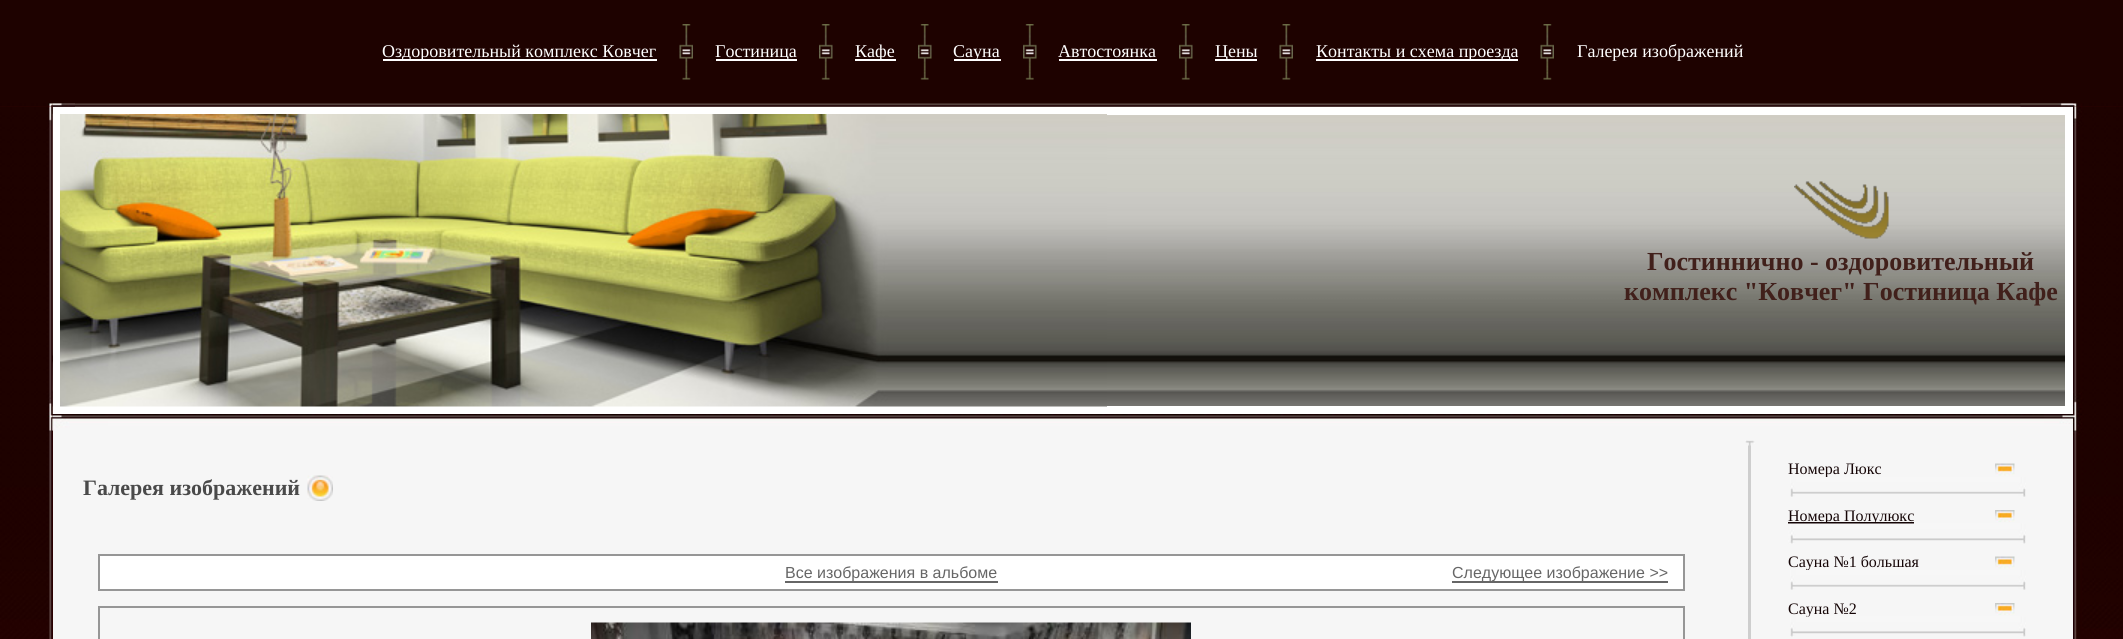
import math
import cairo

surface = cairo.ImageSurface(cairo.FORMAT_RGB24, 2123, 639)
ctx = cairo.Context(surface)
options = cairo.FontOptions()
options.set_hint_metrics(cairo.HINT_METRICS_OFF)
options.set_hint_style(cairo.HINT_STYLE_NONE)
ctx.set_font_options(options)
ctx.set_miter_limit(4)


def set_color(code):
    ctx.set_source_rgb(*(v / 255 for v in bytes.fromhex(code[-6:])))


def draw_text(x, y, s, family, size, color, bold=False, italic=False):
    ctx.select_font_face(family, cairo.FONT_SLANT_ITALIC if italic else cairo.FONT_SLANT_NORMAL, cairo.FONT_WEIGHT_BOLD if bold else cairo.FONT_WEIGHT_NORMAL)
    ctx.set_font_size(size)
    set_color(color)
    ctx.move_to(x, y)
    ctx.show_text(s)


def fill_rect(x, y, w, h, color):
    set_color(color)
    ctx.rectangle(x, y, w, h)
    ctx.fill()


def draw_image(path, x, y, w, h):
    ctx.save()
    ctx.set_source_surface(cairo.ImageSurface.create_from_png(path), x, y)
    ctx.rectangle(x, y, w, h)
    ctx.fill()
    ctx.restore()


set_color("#ffffff")
ctx.paint()
draw_image("assets/img1.png", 0, 104, 2123, 535)
fill_rect(0, 0, 2123, 104, "#1e0200")
fill_rect(383, 59, 274, 2, "#ffffff")
draw_text(382, 57, "Оздоровительный комплекс Ковчег", "Liberation Serif", 18, "#ffffff")
draw_image("assets/img2.png", 679, 24, 14, 56)
fill_rect(716, 59, 81, 2, "#ffffff")
draw_text(715, 57, "Гостиница", "Liberation Serif", 18, "#ffffff")
draw_image("assets/img3.png", 819, 24, 14, 56)
fill_rect(855, 59, 41, 2, "#ffffff")
draw_text(855, 57, "Кафе", "Liberation Serif", 18, "#ffffff")
draw_image("assets/img3.png", 918, 24, 14, 56)
fill_rect(954, 59, 47, 2, "#ffffff")
draw_text(953, 57, "Сауна", "Liberation Serif", 18, "#ffffff")
draw_image("assets/img4.png", 1023, 24, 14, 56)
draw_text(1058, 57, "Автостоянка", "Liberation Serif", 18, "#ffffff")
fill_rect(1059, 59, 98, 2, "#ffffff")
draw_image("assets/img4.png", 1179, 24, 14, 56)
fill_rect(1215, 59, 42, 2, "#ffffff")
draw_text(1215, 57, "Цены", "Liberation Serif", 18, "#ffffff")
draw_image("assets/img5.png", 1279, 24, 14, 56)
fill_rect(1316, 59, 202, 2, "#ffffff")
draw_text(1316, 57, "Контакты и схема проезда", "Liberation Serif", 18, "#ffffff")
draw_image("assets/img6.png", 1540, 24, 14, 56)
draw_text(1577, 57, "Галерея изображений", "Liberation Serif", 18, "#ffffff")
draw_image("assets/img8.png", 52, 103, 2021, 4)
draw_image("assets/img13.png", 52, 106, 2021, 308)
draw_image("assets/img7.png", 0, 103, 53, 4)
draw_image("assets/img9.png", 52, 103, 23, 4)
draw_image("assets/img10.png", 2020, 103, 53, 4)
draw_image("assets/img11.png", 2073, 103, 50, 4)
draw_image("assets/img12.png", 0, 106, 53, 308)
ctx.rectangle(57, 111, 2012, 299)
ctx.set_line_width(8)
ctx.stroke()
draw_image("assets/img14.png", 60, 114, 1047, 293)
draw_image("assets/img15.png", 1794, 181, 95, 58)
draw_text(1647, 270, "Гостиннично - оздоровительный", "Liberation Serif", 26, "#41201b", bold=True)
draw_text(1624, 300, "комплекс \"Ковчег\" Гостиница Кафе", "Liberation Serif", 26, "#41201b", bold=True)
draw_image("assets/img16.png", 2073, 106, 50, 308)
fill_rect(53, 430, 2020, 209, "#f6f6f6")
draw_image("assets/img18.png", 52, 414, 2021, 17)
draw_image("assets/img17.png", 0, 414, 53, 18)
draw_image("assets/img19.png", 52, 414, 56, 17)
draw_image("assets/img20.png", 2044, 414, 29, 10)
draw_image("assets/img21.png", 2073, 414, 50, 18)
draw_image("assets/img22.png", 0, 432, 53, 207)
fill_rect(1748, 445, 3, 194, "#cecece")
draw_image("assets/img23.png", 1745, 440, 10, 6)
draw_text(83, 495, "Галерея изображений", "Liberation Serif", 22, "#4a4a4a", bold=True)
draw_image("assets/img24.png", 307, 475, 26, 26)
set_color("#ffffff")
ctx.rectangle(99, 555, 1585, 35)
ctx.fill_preserve()
set_color("#969696")
ctx.set_line_width(2)
ctx.stroke()
fill_rect(785, 581, 213, 2, "#666666")
draw_text(785, 578, "Все изображения в альбоме", "Liberation Sans", 16, "#666666")
fill_rect(1452, 581, 216, 2, "#666666")
draw_text(1452, 578, "Следующее изображение >>", "Liberation Sans", 16, "#666666")
ctx.rectangle(99, 607, 1585, 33)
set_color("#969696")
ctx.stroke()
draw_image("assets/img25.png", 591, 622, 600, 17)
draw_text(1788, 474, "Номера Люкс", "Liberation Serif", 16, "#150506")
draw_image("assets/img26.png", 1995, 463, 20, 13)
draw_image("assets/img27.png", 1790, 477, 236, 20)
fill_rect(1788, 522, 126, 2, "#150506")
draw_text(1788, 521, "Номера Полулюкс", "Liberation Serif", 16, "#150506")
draw_image("assets/img28.png", 1995, 510, 20, 12)
draw_image("assets/img29.png", 1788, 523, 238, 21)
draw_text(1788, 567, "Сауна №1 большая", "Liberation Serif", 16, "#150506")
draw_image("assets/img26.png", 1995, 556, 20, 13)
draw_image("assets/img27.png", 1790, 570, 236, 20)
draw_text(1788, 614, "Сауна №2", "Liberation Serif", 16, "#150506")
draw_image("assets/img28.png", 1995, 603, 20, 12)
draw_image("assets/img30.png", 1790, 616, 236, 21)
draw_image("assets/img31.png", 2073, 432, 50, 207)
surface.write_to_png("output.png")
